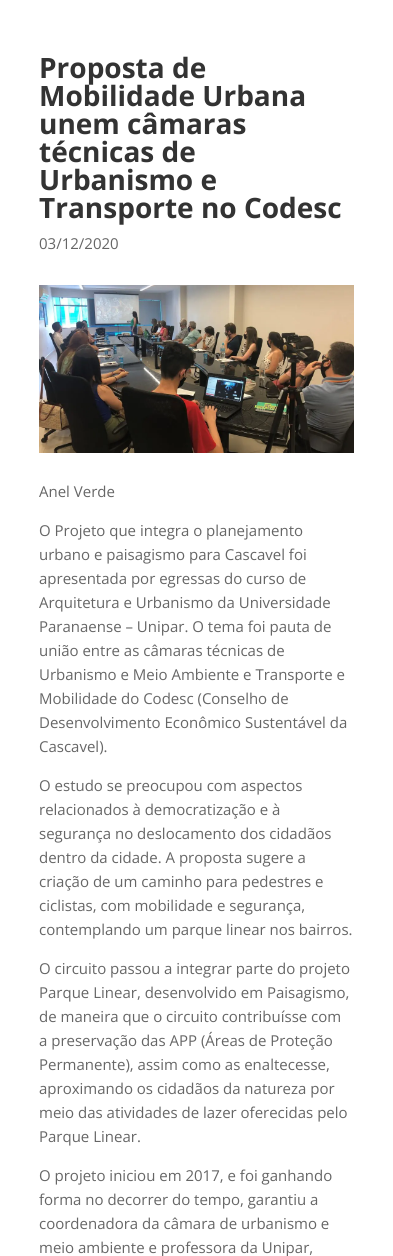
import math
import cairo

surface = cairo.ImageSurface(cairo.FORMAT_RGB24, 393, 1256)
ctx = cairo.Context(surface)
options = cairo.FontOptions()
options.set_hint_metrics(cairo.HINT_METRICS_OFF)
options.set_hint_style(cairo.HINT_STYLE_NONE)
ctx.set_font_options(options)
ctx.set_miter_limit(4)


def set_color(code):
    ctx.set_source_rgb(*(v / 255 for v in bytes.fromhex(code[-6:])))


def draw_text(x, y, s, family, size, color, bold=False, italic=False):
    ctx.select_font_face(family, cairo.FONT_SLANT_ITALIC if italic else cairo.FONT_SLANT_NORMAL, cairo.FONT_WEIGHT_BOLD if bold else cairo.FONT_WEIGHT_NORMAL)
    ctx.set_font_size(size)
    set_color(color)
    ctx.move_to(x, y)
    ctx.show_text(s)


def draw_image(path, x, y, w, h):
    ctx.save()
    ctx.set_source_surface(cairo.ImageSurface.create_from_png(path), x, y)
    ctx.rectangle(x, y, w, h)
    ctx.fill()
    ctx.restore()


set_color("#ffffff")
ctx.paint()
draw_text(39, 78, "Proposta de", "Open Sans", 28, "#333333", bold=True)
draw_text(39, 106, "Mobilidade Urbana", "Open Sans", 28, "#333333", bold=True)
draw_text(39, 134, "unem câmaras", "Open Sans", 28, "#333333", bold=True)
draw_text(39, 162, "técnicas de", "Open Sans", 28, "#333333", bold=True)
draw_text(39, 190, "Urbanismo e", "Open Sans", 28, "#333333", bold=True)
draw_text(39, 218, "Transporte no Codesc", "Open Sans", 28, "#333333", bold=True)
draw_text(39, 249, "03/12/2020", "Open Sans", 15, "#666666")
draw_image("assets/img1.png", 39, 285, 315, 168)
draw_text(39, 497, "Anel Verde", "Open Sans", 15, "#666666")
draw_text(39, 536, "O Projeto que integra o planejamento", "Open Sans", 15, "#666666")
draw_text(39, 560, "urbano e paisagismo para Cascavel foi", "Open Sans", 15, "#666666")
draw_text(39, 584, "apresentada por egressas do curso de", "Open Sans", 15, "#666666")
draw_text(39, 608, "Arquitetura e Urbanismo da Universidade", "Open Sans", 15, "#666666")
draw_text(39, 632, "Paranaense – Unipar. O tema foi pauta de", "Open Sans", 15, "#666666")
draw_text(39, 656, "união entre as câmaras técnicas de", "Open Sans", 15, "#666666")
draw_text(39, 680, "Urbanismo e Meio Ambiente e Transporte e", "Open Sans", 15, "#666666")
draw_text(39, 704, "Mobilidade do Codesc (Conselho de", "Open Sans", 15, "#666666")
draw_text(39, 728, "Desenvolvimento Econômico Sustentável da", "Open Sans", 15, "#666666")
draw_text(39, 752, "Cascavel).", "Open Sans", 15, "#666666")
draw_text(39, 791, "O estudo se preocupou com aspectos", "Open Sans", 15, "#666666")
draw_text(39, 815, "relacionados à democratização e à", "Open Sans", 15, "#666666")
draw_text(39, 839, "segurança no deslocamento dos cidadãos", "Open Sans", 15, "#666666")
draw_text(39, 863, "dentro da cidade. A proposta sugere a", "Open Sans", 15, "#666666")
draw_text(39, 887, "criação de um caminho para pedestres e", "Open Sans", 15, "#666666")
draw_text(39, 911, "ciclistas, com mobilidade e segurança,", "Open Sans", 15, "#666666")
draw_text(39, 935, "contemplando um parque linear nos bairros.", "Open Sans", 15, "#666666")
draw_text(39, 974, "O circuito passou a integrar parte do projeto", "Open Sans", 15, "#666666")
draw_text(39, 998, "Parque Linear, desenvolvido em Paisagismo,", "Open Sans", 15, "#666666")
draw_text(39, 1022, "de maneira que o circuito contribuísse com", "Open Sans", 15, "#666666")
draw_text(39, 1046, "a preservação das APP (Áreas de Proteção", "Open Sans", 15, "#666666")
draw_text(39, 1070, "Permanente), assim como as enaltecesse,", "Open Sans", 15, "#666666")
draw_text(39, 1094, "aproximando os cidadãos da natureza por", "Open Sans", 15, "#666666")
draw_text(39, 1118, "meio das atividades de lazer oferecidas pelo", "Open Sans", 15, "#666666")
draw_text(39, 1142, "Parque Linear.", "Open Sans", 15, "#666666")
draw_text(39, 1181, "O projeto iniciou em 2017, e foi ganhando", "Open Sans", 15, "#666666")
draw_text(39, 1205, "forma no decorrer do tempo, garantiu a", "Open Sans", 15, "#666666")
draw_text(39, 1229, "coordenadora da câmara de urbanismo e", "Open Sans", 15, "#666666")
draw_text(39, 1253, "meio ambiente e professora da Unipar,", "Open Sans", 15, "#666666")
surface.write_to_png("output.png")
